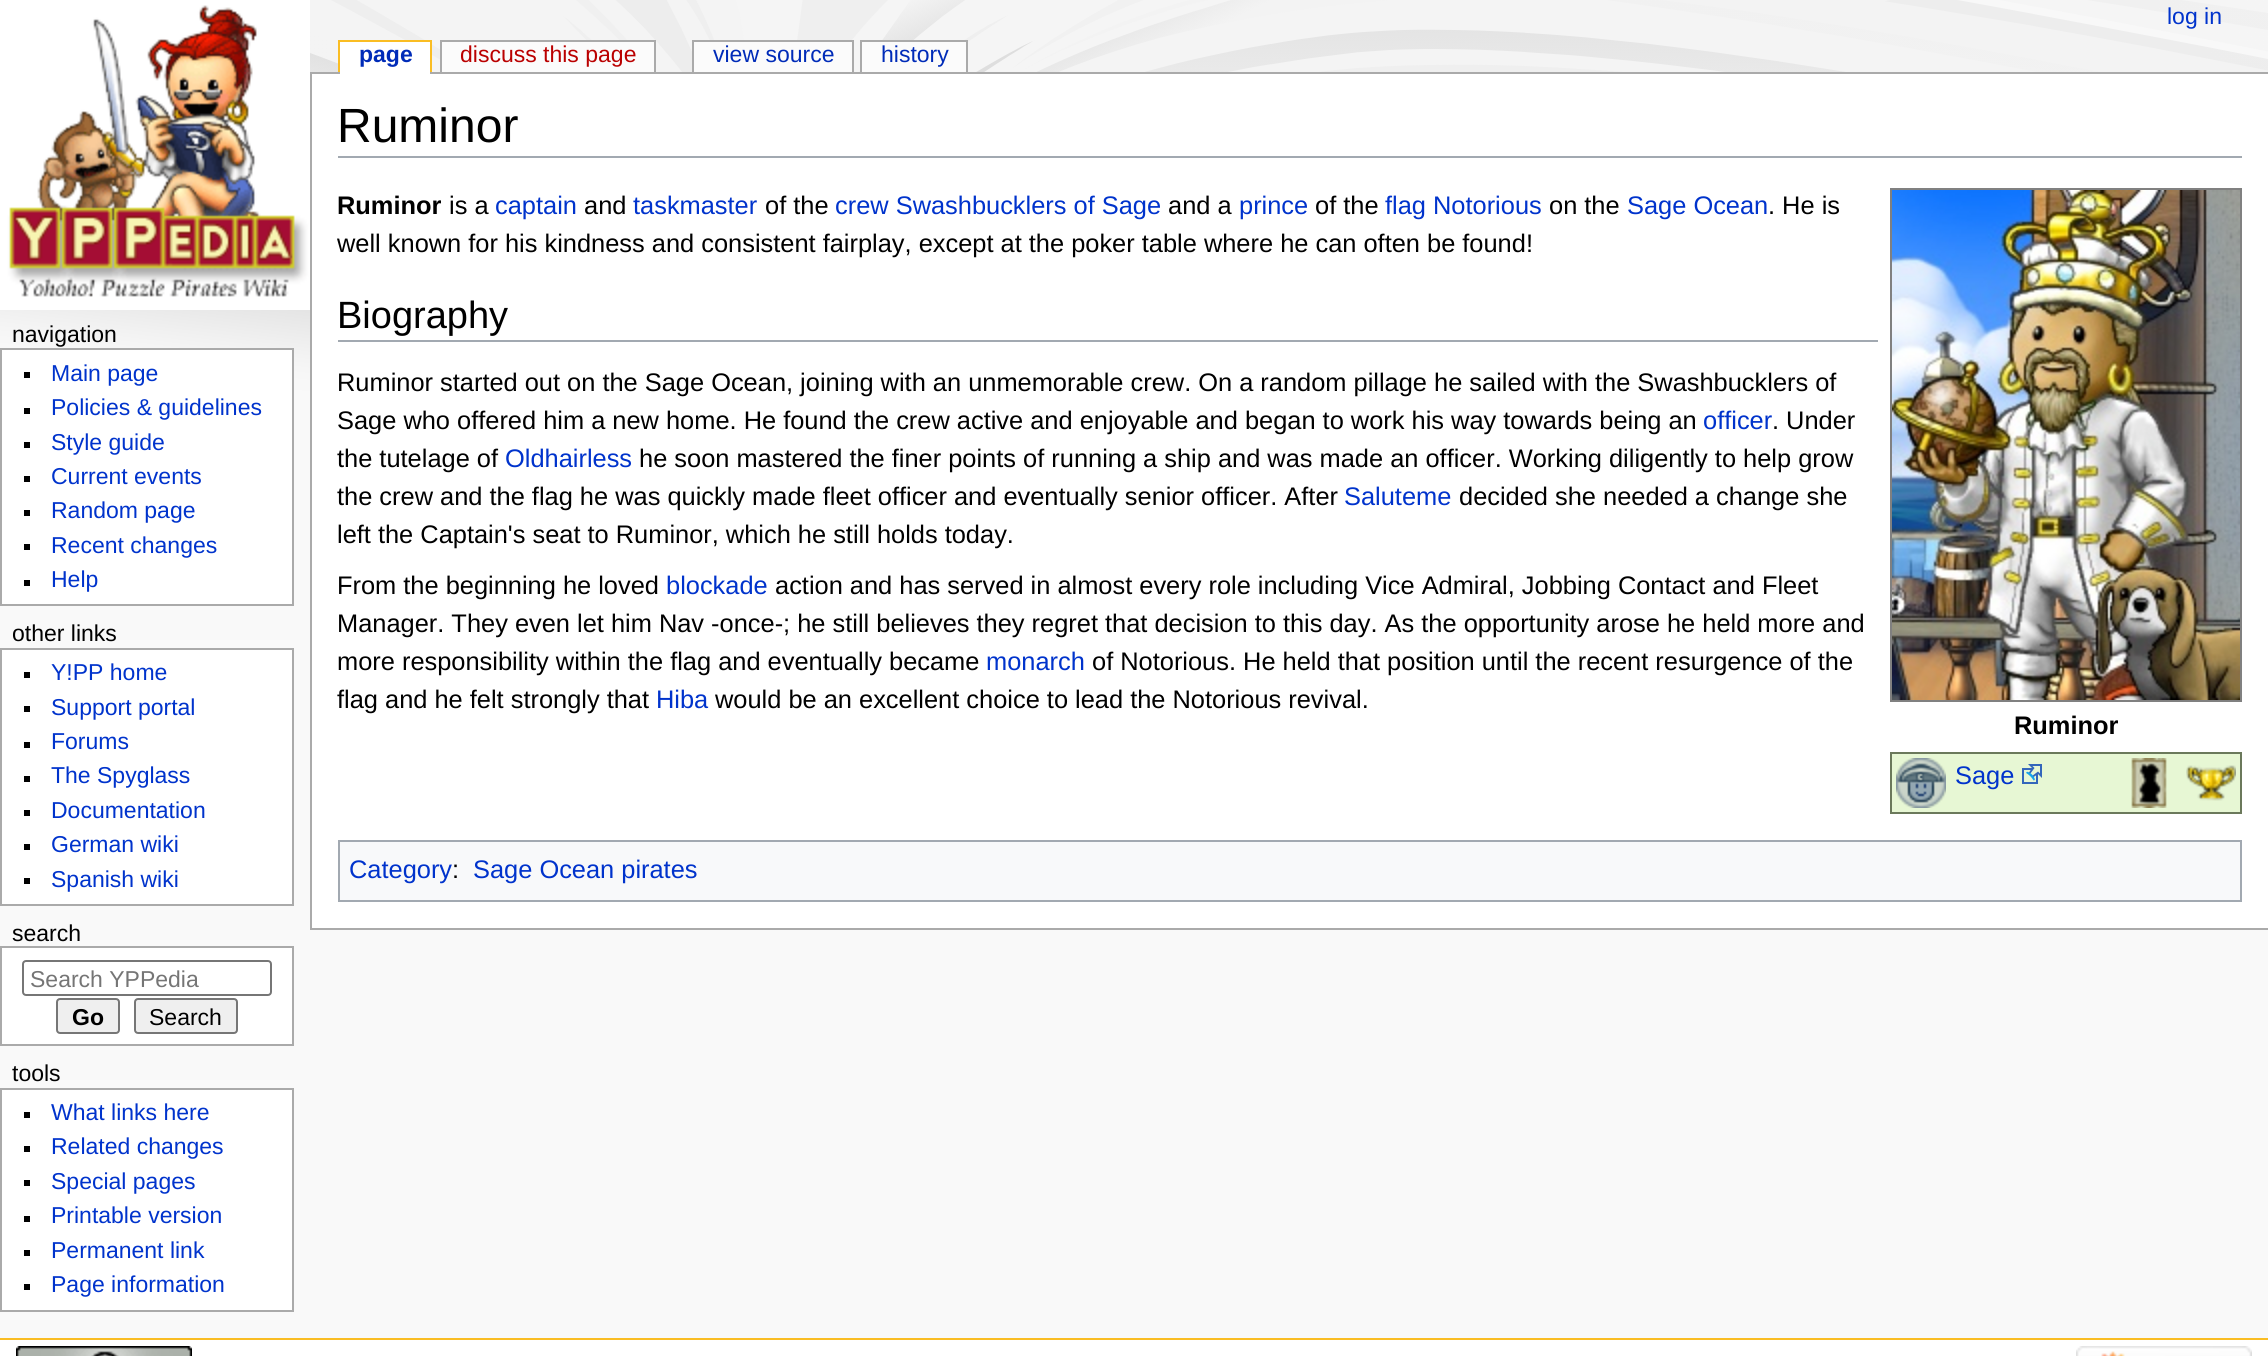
import math
import cairo

surface = cairo.ImageSurface(cairo.FORMAT_RGB24, 2268, 1356)
ctx = cairo.Context(surface)
options = cairo.FontOptions()
options.set_hint_metrics(cairo.HINT_METRICS_OFF)
options.set_hint_style(cairo.HINT_STYLE_NONE)
ctx.set_font_options(options)
ctx.set_miter_limit(4)


def set_color(code):
    ctx.set_source_rgb(*(v / 255 for v in bytes.fromhex(code[-6:])))


def draw_text(x, y, s, family, size, color, bold=False, italic=False):
    ctx.select_font_face(family, cairo.FONT_SLANT_ITALIC if italic else cairo.FONT_SLANT_NORMAL, cairo.FONT_WEIGHT_BOLD if bold else cairo.FONT_WEIGHT_NORMAL)
    ctx.set_font_size(size)
    set_color(color)
    ctx.move_to(x, y)
    ctx.show_text(s)


def fill_rect(x, y, w, h, color):
    set_color(color)
    ctx.rectangle(x, y, w, h)
    ctx.fill()


def rounded_rect(x, y, w, h, r):
    ctx.new_sub_path()
    for i, (u, v) in enumerate([(x + w - r, y + h - r), (x + r, y + h - r), (x + r, y + r), (x + w - r, y + r)]):
        ctx.arc(u, v, r, i * math.pi / 2, (i + 1) * math.pi / 2)
    ctx.close_path()


def draw_image(path, x, y, w, h):
    ctx.save()
    ctx.set_source_surface(cairo.ImageSurface.create_from_png(path), x, y)
    ctx.rectangle(x, y, w, h)
    ctx.fill()
    ctx.restore()


set_color("#f9f9f9")
ctx.paint()
draw_image("assets/img1.png", 0, 0, 2268, 419)
draw_image("assets/img2.png", 0, 0, 310, 310)
draw_text(2167, 24, "log in", "Liberation Sans", 23, "#0033cc")
fill_rect(310, 72, 1958, 2, "#aaaaaa")
fill_rect(340, 42, 90, 32, "#ffffff")
draw_text(359, 62, "page", "Liberation Sans", 23, "#002bb8", bold=True)
fill_rect(338, 40, 94, 2, "#fabd23")
fill_rect(430, 40, 2, 32, "#fabd23")
fill_rect(338, 40, 2, 32, "#fabd23")
fill_rect(442, 42, 212, 30, "#fbfbfb")
draw_text(460, 62, "discuss this page", "Liberation Sans", 23, "#ba0000")
fill_rect(440, 40, 216, 2, "#aaaaaa")
fill_rect(654, 40, 2, 32, "#aaaaaa")
fill_rect(440, 40, 2, 32, "#aaaaaa")
fill_rect(694, 42, 158, 30, "#fbfbfb")
draw_text(713, 62, "view source", "Liberation Sans", 23, "#002bb8")
fill_rect(692, 40, 162, 2, "#aaaaaa")
fill_rect(852, 40, 2, 32, "#aaaaaa")
fill_rect(692, 40, 2, 32, "#aaaaaa")
fill_rect(862, 42, 104, 30, "#fbfbfb")
draw_text(881, 62, "history", "Liberation Sans", 23, "#002bb8")
fill_rect(860, 40, 108, 2, "#aaaaaa")
fill_rect(966, 40, 2, 32, "#aaaaaa")
fill_rect(860, 40, 2, 32, "#aaaaaa")
draw_text(12, 342, "navigation", "Liberation Sans", 23, "#000000")
set_color("#ffffff")
ctx.rectangle(1, 349, 292, 256)
ctx.fill_preserve()
set_color("#aaaaaa")
ctx.stroke()
fill_rect(24, 372, 6, 6, "#000000")
draw_text(51, 381, "Main page", "Liberation Sans", 23, "#0033cc")
fill_rect(24, 408, 6, 6, "#000000")
draw_text(51, 415, "Policies & guidelines", "Liberation Sans", 23, "#0033cc")
fill_rect(24, 442, 6, 6, "#000000")
draw_text(51, 450, "Style guide", "Liberation Sans", 23, "#0033cc")
fill_rect(24, 476, 6, 6, "#000000")
draw_text(51, 484, "Current events", "Liberation Sans", 23, "#0033cc")
fill_rect(24, 510, 6, 6, "#000000")
draw_text(51, 518, "Random page", "Liberation Sans", 23, "#0033cc")
fill_rect(24, 544, 6, 6, "#000000")
draw_text(51, 553, "Recent changes", "Liberation Sans", 23, "#0033cc")
fill_rect(24, 580, 6, 6, "#000000")
draw_text(51, 587, "Help", "Liberation Sans", 23, "#0033cc")
draw_text(12, 641, "other links", "Liberation Sans", 23, "#000000")
set_color("#ffffff")
ctx.rectangle(1, 649, 292, 256)
ctx.fill_preserve()
set_color("#aaaaaa")
ctx.stroke()
fill_rect(24, 672, 6, 6, "#000000")
draw_text(51, 680, "Y!PP home", "Liberation Sans", 23, "#0033cc")
fill_rect(24, 706, 6, 6, "#000000")
draw_text(51, 715, "Support portal", "Liberation Sans", 23, "#0033cc")
fill_rect(24, 742, 6, 6, "#000000")
draw_text(51, 749, "Forums", "Liberation Sans", 23, "#0033cc")
fill_rect(24, 776, 6, 6, "#000000")
draw_text(51, 783, "The Spyglass", "Liberation Sans", 23, "#0033cc")
fill_rect(24, 810, 6, 6, "#000000")
draw_text(51, 818, "Documentation", "Liberation Sans", 23, "#0033cc")
fill_rect(24, 844, 6, 6, "#000000")
draw_text(51, 852, "German wiki", "Liberation Sans", 23, "#0033cc")
fill_rect(24, 878, 6, 6, "#000000")
draw_text(51, 887, "Spanish wiki", "Liberation Sans", 23, "#0033cc")
draw_text(12, 941, "search", "Liberation Sans", 23, "#000000")
set_color("#ffffff")
ctx.rectangle(1, 947, 292, 98)
ctx.fill_preserve()
set_color("#aaaaaa")
ctx.stroke()
rounded_rect(23, 961, 248, 34, 3)
set_color("#767676")
ctx.stroke()
draw_text(30, 987, "Search YPPedia", "Liberation Sans", 23, "#757575")
set_color("#efefef")
rounded_rect(57, 999, 62, 34, 3)
ctx.fill_preserve()
set_color("#767676")
ctx.stroke()
draw_text(72, 1025, "Go", "Liberation Sans", 23, "#000000", bold=True)
set_color("#efefef")
rounded_rect(135, 999, 102, 34, 3)
ctx.fill_preserve()
set_color("#767676")
ctx.stroke()
draw_text(149, 1025, "Search", "Liberation Sans", 23, "#000000")
draw_text(12, 1081, "tools", "Liberation Sans", 23, "#000000")
set_color("#ffffff")
ctx.rectangle(1, 1089, 292, 222)
ctx.fill_preserve()
set_color("#aaaaaa")
ctx.stroke()
fill_rect(24, 1112, 6, 6, "#000000")
draw_text(51, 1120, "What links here", "Liberation Sans", 23, "#0033cc")
fill_rect(24, 1146, 6, 6, "#000000")
draw_text(51, 1154, "Related changes", "Liberation Sans", 23, "#0033cc")
fill_rect(24, 1180, 6, 6, "#000000")
draw_text(51, 1189, "Special pages", "Liberation Sans", 23, "#0033cc")
fill_rect(24, 1216, 6, 6, "#000000")
draw_text(51, 1223, "Printable version", "Liberation Sans", 23, "#0033cc")
fill_rect(24, 1250, 6, 6, "#000000")
draw_text(51, 1258, "Permanent link", "Liberation Sans", 23, "#0033cc")
fill_rect(24, 1284, 6, 6, "#000000")
draw_text(51, 1292, "Page information", "Liberation Sans", 23, "#0033cc")
fill_rect(312, 74, 1956, 854, "#ffffff")
fill_rect(310, 928, 1958, 2, "#aaaaaa")
fill_rect(310, 72, 2, 858, "#aaaaaa")
fill_rect(338, 156, 1904, 2, "#a2a9b1")
draw_text(337, 142, "Ruminor", "Liberation Sans", 48, "#000000")
draw_text(337, 214, "Ruminor", "Liberation Sans", 25.4, "#000000", bold=True)
draw_text(449, 214, "is a", "Liberation Sans", 25.4, "#000000")
draw_text(495, 214, "captain", "Liberation Sans", 25.4, "#0033cc")
draw_text(584, 214, "and", "Liberation Sans", 25.4, "#000000")
draw_text(633, 214, "taskmaster", "Liberation Sans", 25.4, "#0033cc")
draw_text(765, 214, "of the", "Liberation Sans", 25.4, "#000000")
draw_text(835, 214, "crew Swashbucklers of Sage", "Liberation Sans", 25.4, "#0033cc")
draw_text(1168, 214, "and a", "Liberation Sans", 25.4, "#000000")
draw_text(1239, 214, "prince", "Liberation Sans", 25.4, "#0033cc")
draw_text(1315, 214, "of the", "Liberation Sans", 25.4, "#000000")
draw_text(1385, 214, "flag Notorious", "Liberation Sans", 25.4, "#0033cc")
draw_text(1549, 214, "on the", "Liberation Sans", 25.4, "#000000")
draw_text(1627, 214, "Sage Ocean", "Liberation Sans", 25.4, "#0033cc")
draw_text(1768, 214, ". He is", "Liberation Sans", 25.4, "#000000")
draw_text(337, 252, "well known for his kindness and consistent fairplay, except at the poker table where he can often be found!", "Liberation Sans", 25.4, "#000000")
fill_rect(338, 340, 1540, 2, "#a2a9b1")
draw_text(337, 328, "Biography", "Liberation Sans", 38, "#000000")
draw_text(337, 391, "Ruminor started out on the Sage Ocean, joining with an unmemorable crew. On a random pillage he sailed with the Swashbucklers of", "Liberation Sans", 25.4, "#000000")
draw_text(337, 429, "Sage who offered him a new home. He found the crew active and enjoyable and began to work his way towards being an", "Liberation Sans", 25.4, "#000000")
draw_text(1703, 429, "officer", "Liberation Sans", 25.4, "#0033cc")
draw_text(1772, 429, ". Under", "Liberation Sans", 25.4, "#000000")
draw_text(337, 467, "the tutelage of", "Liberation Sans", 25.4, "#000000")
draw_text(505, 467, "Oldhairless", "Liberation Sans", 25.4, "#0033cc")
draw_text(639, 467, "he soon mastered the finer points of running a ship and was made an officer. Working diligently to help grow", "Liberation Sans", 25.4, "#000000")
draw_text(337, 505, "the crew and the flag he was quickly made fleet officer and eventually senior officer. After", "Liberation Sans", 25.4, "#000000")
draw_text(1344, 505, "Saluteme", "Liberation Sans", 25.4, "#0033cc")
draw_text(1459, 505, "decided she needed a change she", "Liberation Sans", 25.4, "#000000")
draw_text(337, 543, "left the Captain's seat to Ruminor, which he still holds today.", "Liberation Sans", 25.4, "#000000")
draw_text(337, 594, "From the beginning he loved", "Liberation Sans", 25.4, "#000000")
draw_text(666, 594, "blockade", "Liberation Sans", 25.4, "#0033cc")
draw_text(775, 594, "action and has served in almost every role including Vice Admiral, Jobbing Contact and Fleet", "Liberation Sans", 25.4, "#000000")
draw_text(337, 632, "Manager. They even let him Nav -once-; he still believes they regret that decision to this day. As the opportunity arose he held more and", "Liberation Sans", 25.4, "#000000")
draw_text(337, 670, "more responsibility within the flag and eventually became", "Liberation Sans", 25.4, "#000000")
draw_text(986, 670, "monarch", "Liberation Sans", 25.4, "#0033cc")
draw_text(1092, 670, "of Notorious. He held that position until the recent resurgence of the", "Liberation Sans", 25.4, "#000000")
draw_text(337, 708, "flag and he felt strongly that", "Liberation Sans", 25.4, "#000000")
draw_text(656, 708, "Hiba", "Liberation Sans", 25.4, "#0033cc")
draw_text(715, 708, "would be an excellent choice to lead the Notorious revival.", "Liberation Sans", 25.4, "#000000")
ctx.rectangle(1891, 189, 350, 512)
set_color("#808080")
ctx.stroke()
draw_image("assets/img3.png", 1892, 190, 348, 510)
draw_text(2014, 734, "Ruminor", "Liberation Sans", 25.4, "#000000", bold=True)
set_color("#e7f7d4")
ctx.rectangle(1891, 753, 350, 60)
ctx.fill_preserve()
set_color("#6b795b")
ctx.stroke()
draw_image("assets/img4.png", 1896, 758, 50, 50)
draw_text(1955, 784, "Sage", "Liberation Sans", 25.4, "#0033cc")
draw_image("assets/img5.png", 2022, 764, 20, 20)
draw_image("assets/img6.png", 2131, 758, 36, 50)
draw_image("assets/img7.png", 2186, 765, 50, 36)
set_color("#f8f9fa")
ctx.rectangle(339, 841, 1902, 60)
ctx.fill_preserve()
set_color("#a2a9b1")
ctx.stroke()
draw_text(349, 878, "Category", "Liberation Sans", 25.4, "#0033cc")
draw_text(452, 878, ":", "Liberation Sans", 25.4, "#000000")
draw_text(473, 878, "Sage Ocean pirates", "Liberation Sans", 25.4, "#0033cc")
fill_rect(0, 1340, 2268, 16, "#ffffff")
fill_rect(0, 1338, 2268, 2, "#fabd23")
draw_image("assets/img8.png", 16, 1346, 176, 10)
draw_image("assets/img9.png", 2076, 1346, 176, 10)
surface.write_to_png("output.png")
